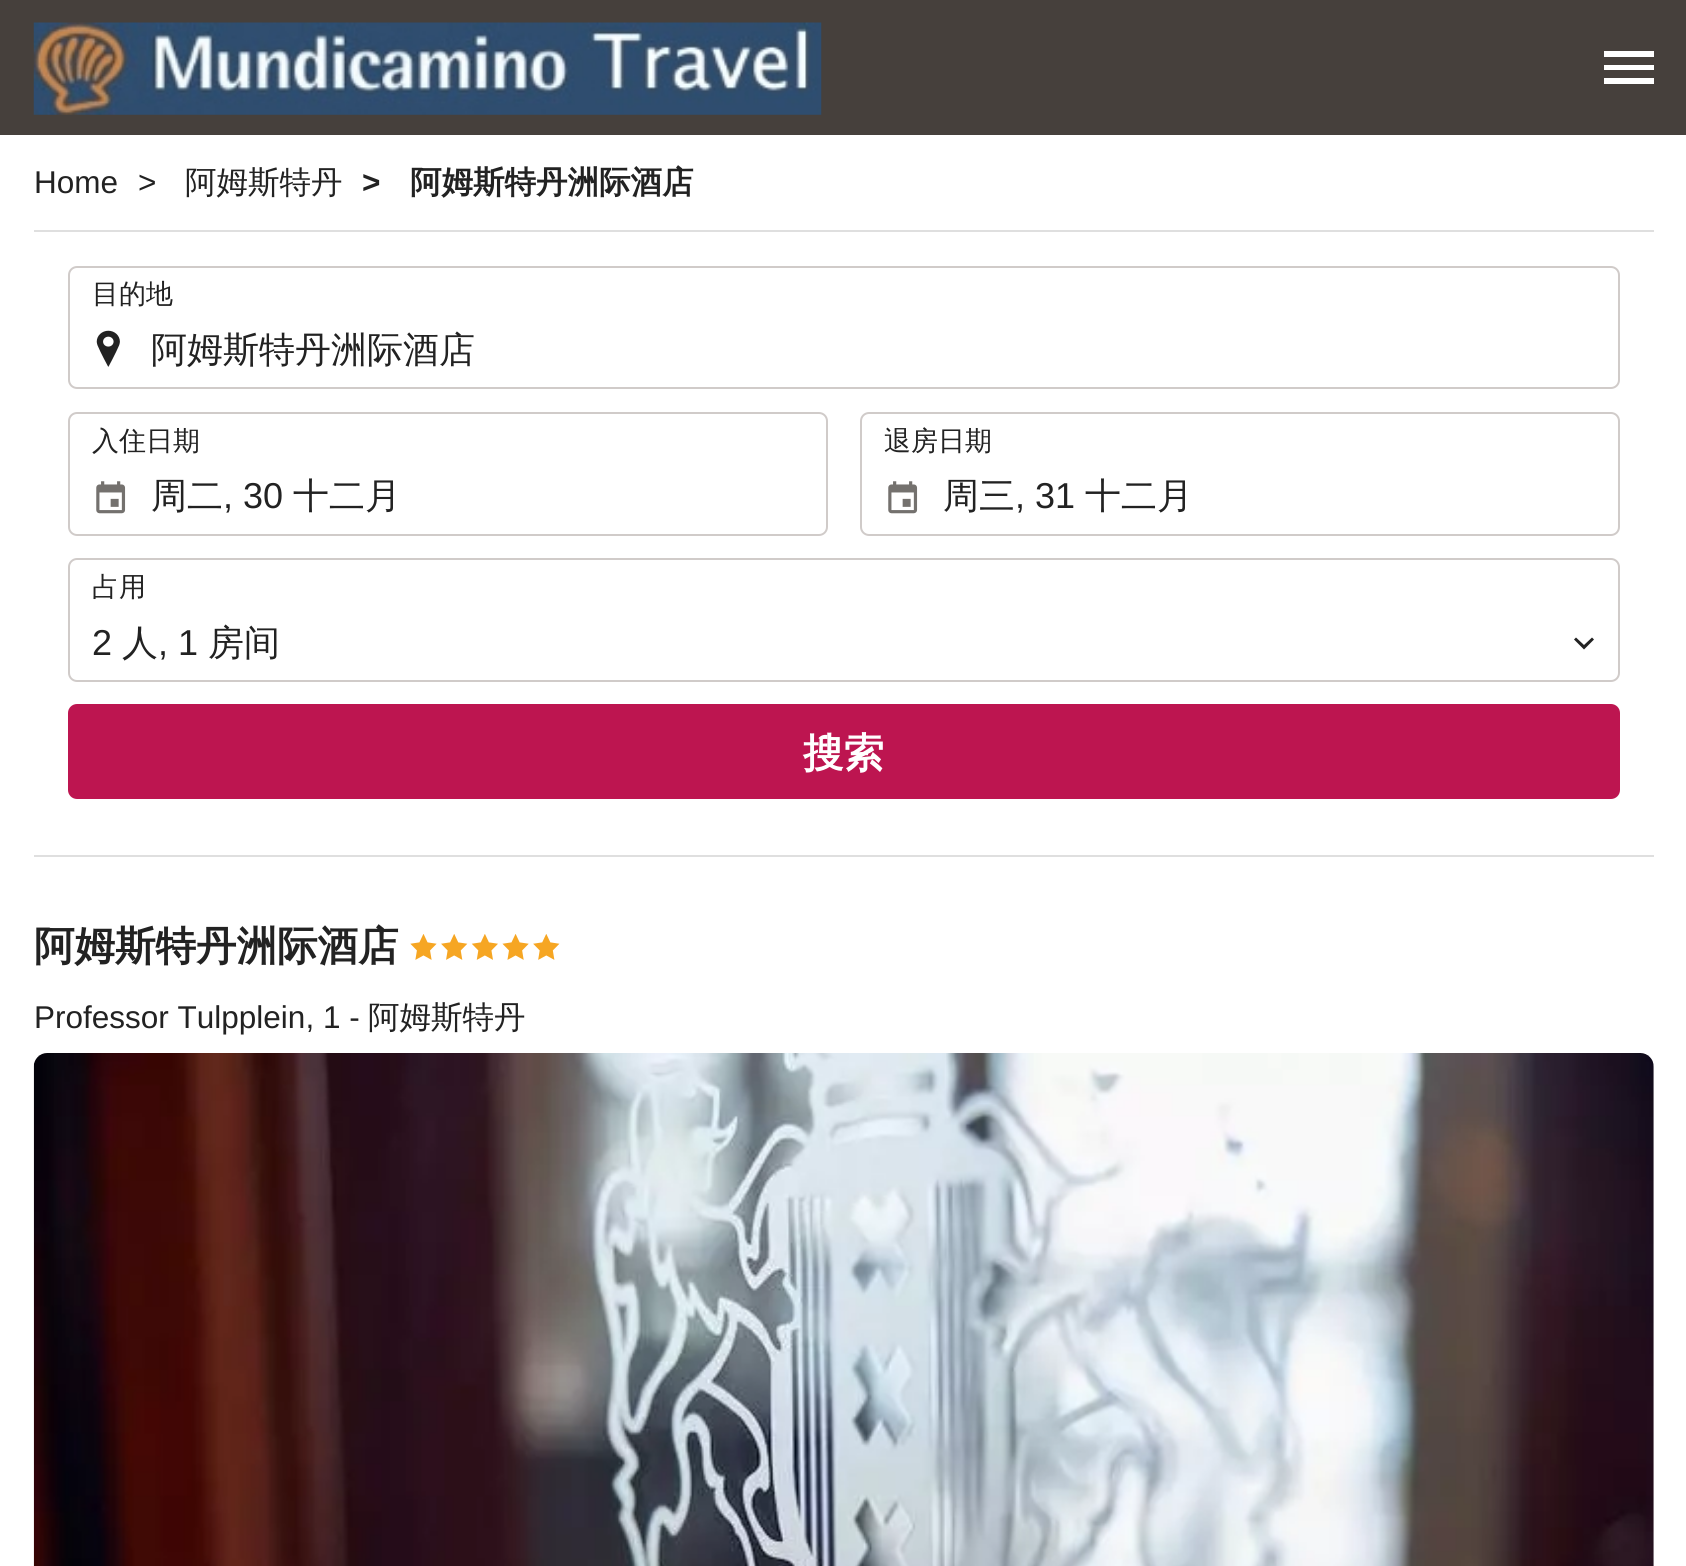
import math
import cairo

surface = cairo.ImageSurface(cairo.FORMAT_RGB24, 1686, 1566)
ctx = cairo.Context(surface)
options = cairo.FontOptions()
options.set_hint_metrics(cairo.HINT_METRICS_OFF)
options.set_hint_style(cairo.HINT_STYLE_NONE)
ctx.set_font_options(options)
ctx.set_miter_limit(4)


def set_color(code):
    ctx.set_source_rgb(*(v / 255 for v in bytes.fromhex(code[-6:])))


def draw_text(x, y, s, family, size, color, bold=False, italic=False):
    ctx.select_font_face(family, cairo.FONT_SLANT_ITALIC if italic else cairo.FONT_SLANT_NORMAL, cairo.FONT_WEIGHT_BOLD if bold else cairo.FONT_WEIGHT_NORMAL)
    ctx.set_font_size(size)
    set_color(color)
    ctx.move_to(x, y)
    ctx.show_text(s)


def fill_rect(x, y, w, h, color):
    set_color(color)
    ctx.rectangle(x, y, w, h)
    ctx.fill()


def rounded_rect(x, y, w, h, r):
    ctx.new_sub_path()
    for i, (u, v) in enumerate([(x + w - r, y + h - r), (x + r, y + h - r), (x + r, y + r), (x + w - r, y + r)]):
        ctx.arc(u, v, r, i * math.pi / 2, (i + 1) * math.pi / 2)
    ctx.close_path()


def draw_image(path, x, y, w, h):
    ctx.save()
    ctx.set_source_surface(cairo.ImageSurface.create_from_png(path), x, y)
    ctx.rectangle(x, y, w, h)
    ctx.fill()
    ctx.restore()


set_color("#ffffff")
ctx.paint()
fill_rect(0, 0, 1686, 135, "#46403c")
draw_image("assets/img1.png", 33, 22, 789, 93)
set_color("#ffffff")
ctx.new_path()
ctx.move_to(1604, 51)
ctx.line_to(1654, 51)
ctx.line_to(1654, 57)
ctx.line_to(1604, 57)
ctx.close_path()
ctx.move_to(1604, 65)
ctx.line_to(1654, 65)
ctx.line_to(1654, 70)
ctx.line_to(1604, 70)
ctx.close_path()
ctx.move_to(1604, 78)
ctx.line_to(1654, 78)
ctx.line_to(1654, 84)
ctx.line_to(1604, 84)
ctx.close_path()
ctx.fill()
draw_text(34, 193, "Home", "Liberation Sans", 31.5, "#222222")
draw_text(138, 193, ">", "Liberation Sans", 31.5, "#222222")
draw_text(185, 193, "阿姆斯特丹", "WenQuanYi Zen Hei Medium", 31.5, "#222222")
draw_text(362, 193, ">", "Liberation Sans", 31.5, "#222222", bold=True)
draw_text(410, 193, "阿姆斯特丹洲际酒店", "WenQuanYi Zen Hei", 31.5, "#222222", bold=True)
fill_rect(34, 230, 1620, 2, "#dfdfdf")
fill_rect(34, 855, 1620, 2, "#dfdfdf")
draw_image("assets/img2.png", 96, 330, 24, 37)
rounded_rect(69, 267, 1550, 121, 8)
set_color("#d0cbc9")
ctx.stroke()
draw_text(92, 303, "目的地", "WenQuanYi Zen Hei Medium", 27, "#222222")
draw_text(151, 362, "阿姆斯特丹洲际酒店", "WenQuanYi Zen Hei Medium", 36, "#222222")
draw_image("assets/img3.png", 96, 481, 30, 33)
rounded_rect(69, 413, 758, 122, 8)
set_color("#d0cbc9")
ctx.stroke()
draw_text(92, 450, "入住日期", "WenQuanYi Zen Hei Medium", 27, "#222222")
draw_text(151, 508, "周二", "WenQuanYi Zen Hei Medium", 36, "#222222")
draw_text(223, 508, ", 30", "Liberation Sans", 36, "#222222")
draw_text(293, 508, "十二月", "WenQuanYi Zen Hei Medium", 36, "#222222")
draw_image("assets/img3.png", 888, 481, 30, 33)
rounded_rect(861, 413, 758, 122, 8)
set_color("#d0cbc9")
ctx.stroke()
draw_text(884, 450, "退房日期", "WenQuanYi Zen Hei Medium", 27, "#222222")
draw_text(943, 508, "周三", "WenQuanYi Zen Hei Medium", 36, "#222222")
draw_text(1015, 508, ", 31", "Liberation Sans", 36, "#222222")
draw_text(1085, 508, "十二月", "WenQuanYi Zen Hei Medium", 36, "#222222")
rounded_rect(69, 559, 1550, 122, 8)
set_color("#d0cbc9")
ctx.stroke()
draw_text(92, 596, "占用", "WenQuanYi Zen Hei Medium", 27, "#222222")
draw_text(92, 655, "2", "Liberation Sans", 36, "#222222")
draw_text(122, 655, "人", "WenQuanYi Zen Hei Medium", 36, "#222222")
draw_text(158, 655, ", 1", "Liberation Sans", 36, "#222222")
draw_text(208, 655, "房间", "WenQuanYi Zen Hei Medium", 36, "#222222")
ctx.set_fill_rule(cairo.FILL_RULE_EVEN_ODD)
ctx.new_path()
ctx.move_to(1576, 637.5)
ctx.line_to(1584, 645)
ctx.line_to(1592, 637.5)
ctx.line_to(1594, 639.5)
ctx.line_to(1584, 649.5)
ctx.line_to(1574, 639.5)
ctx.close_path()
ctx.fill()
set_color("#bd1550")
rounded_rect(68, 704, 1552, 95, 9)
ctx.fill()
draw_text(803, 767, "搜索", "WenQuanYi Zen Hei", 40.5, "#ffffff", bold=True)
draw_text(34, 960, "阿姆斯特丹洲际酒店", "WenQuanYi Zen Hei", 40.5, "#222222", bold=True)
draw_image("assets/img4.png", 410, 934, 150, 26)
draw_text(34, 1028, "Professor Tulpplein, 1 -", "Liberation Sans", 31.5, "#222222")
draw_text(368, 1028, "阿姆斯特丹", "WenQuanYi Zen Hei Medium", 31.5, "#222222")
draw_image("assets/img5.png", 33, 1053, 1621, 513)
surface.write_to_png("output.png")
